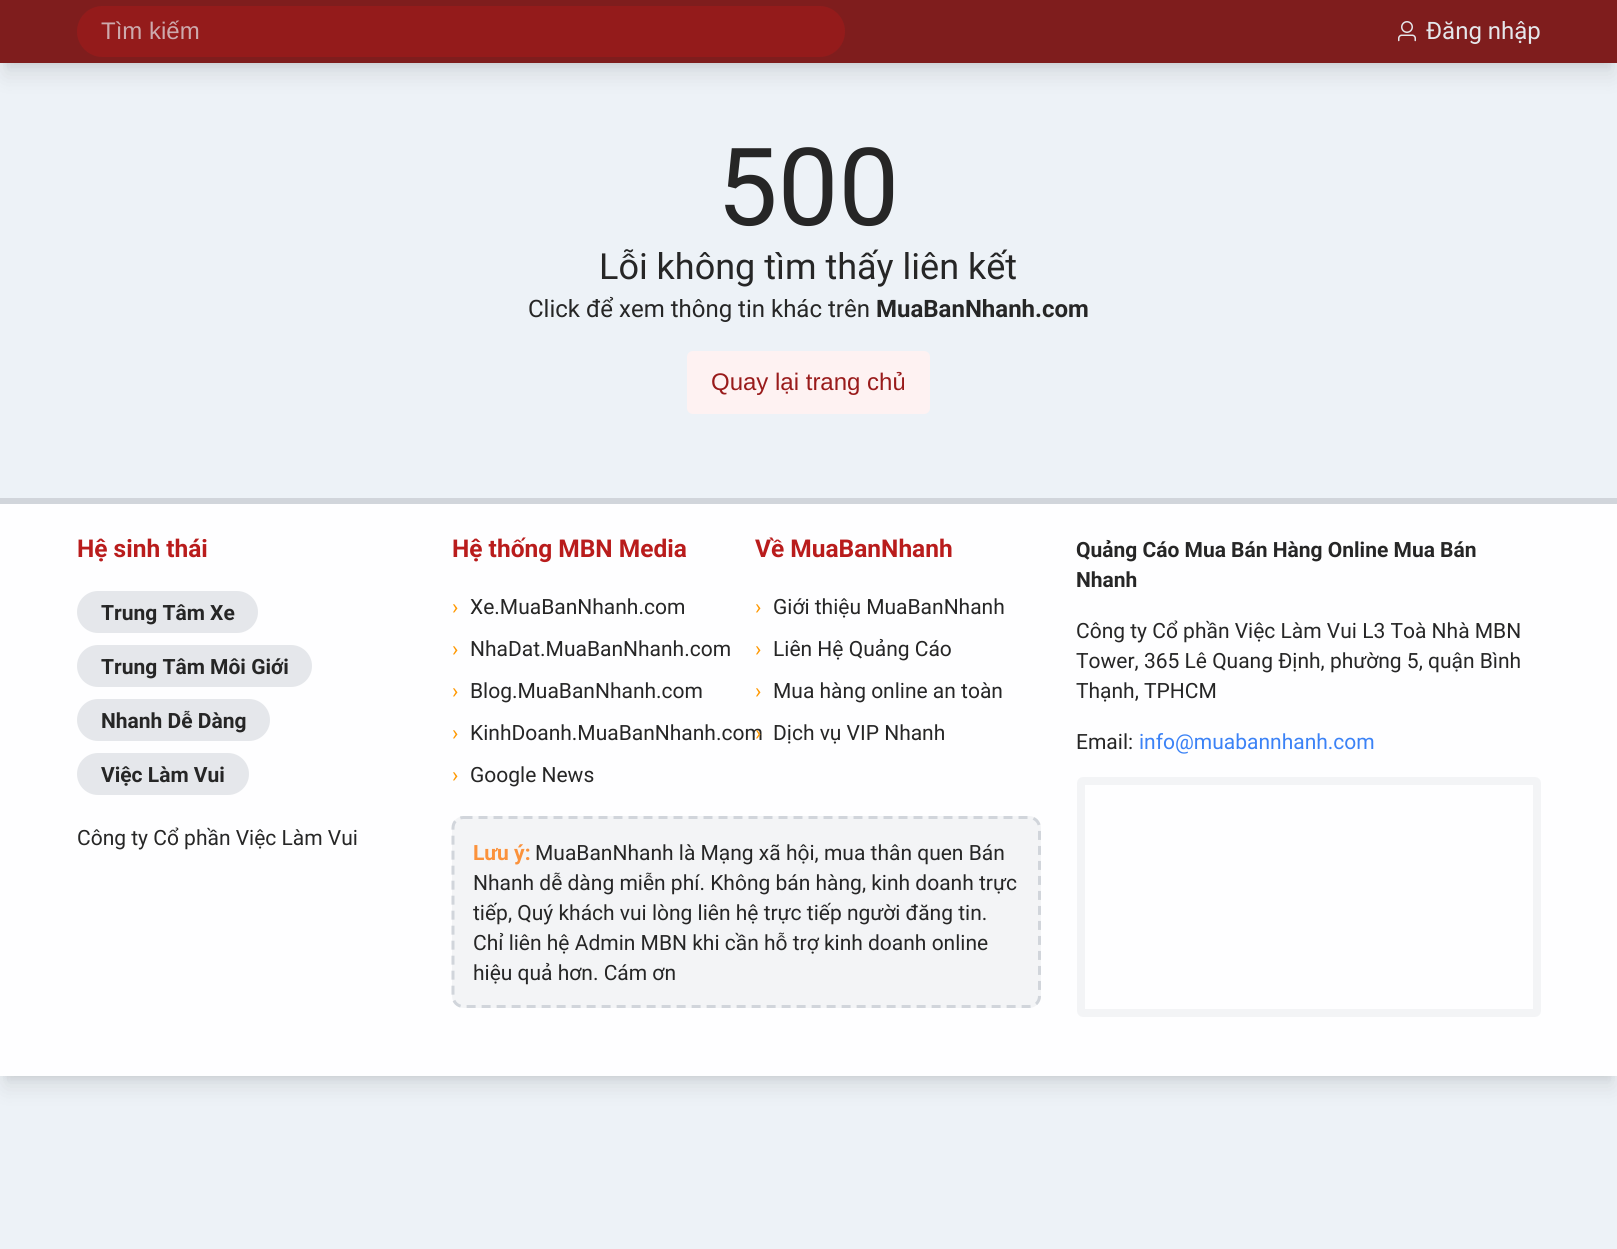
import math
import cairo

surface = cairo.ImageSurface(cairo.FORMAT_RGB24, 1617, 1249)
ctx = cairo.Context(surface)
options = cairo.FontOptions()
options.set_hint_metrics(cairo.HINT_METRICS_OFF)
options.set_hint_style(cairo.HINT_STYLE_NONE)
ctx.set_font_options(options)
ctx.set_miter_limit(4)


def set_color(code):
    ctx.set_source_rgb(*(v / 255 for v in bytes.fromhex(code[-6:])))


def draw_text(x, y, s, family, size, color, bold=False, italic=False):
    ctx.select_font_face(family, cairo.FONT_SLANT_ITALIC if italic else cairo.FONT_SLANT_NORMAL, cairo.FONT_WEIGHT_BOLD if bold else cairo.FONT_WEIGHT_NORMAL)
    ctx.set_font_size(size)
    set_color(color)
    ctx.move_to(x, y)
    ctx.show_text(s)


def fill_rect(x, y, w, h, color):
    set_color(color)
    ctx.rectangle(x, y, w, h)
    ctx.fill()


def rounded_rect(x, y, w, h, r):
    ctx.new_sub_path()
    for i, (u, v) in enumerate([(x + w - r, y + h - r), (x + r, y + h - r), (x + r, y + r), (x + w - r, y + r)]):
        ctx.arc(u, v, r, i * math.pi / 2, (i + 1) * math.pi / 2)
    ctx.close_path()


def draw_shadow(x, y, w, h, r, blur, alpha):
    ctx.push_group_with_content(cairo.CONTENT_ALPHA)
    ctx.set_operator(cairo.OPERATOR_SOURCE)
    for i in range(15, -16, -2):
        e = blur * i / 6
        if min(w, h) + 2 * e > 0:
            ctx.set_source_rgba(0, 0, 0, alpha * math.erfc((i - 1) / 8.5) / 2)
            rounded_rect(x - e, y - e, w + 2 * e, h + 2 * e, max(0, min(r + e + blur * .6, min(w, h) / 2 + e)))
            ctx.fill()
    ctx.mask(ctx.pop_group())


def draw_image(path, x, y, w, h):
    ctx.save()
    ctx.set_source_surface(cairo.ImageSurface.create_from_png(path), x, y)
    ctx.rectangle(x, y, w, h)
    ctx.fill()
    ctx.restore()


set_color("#edf2f7")
ctx.paint()
set_color("#000000")
draw_shadow(6, 12, 1605, 51, 0, 4.5, 0.1)
draw_shadow(5, 20, 1608, 54, 0, 11, 0.1)
fill_rect(0, 0, 1617, 63, "#7f1d1d")
set_color("#941b1b")
rounded_rect(77, 6, 768, 51, 25.5)
ctx.fill()
draw_text(101, 39, "Tìm kiếm", "Liberation Sans", 24, "#cdaaad")
draw_image("assets/img1.png", 1398, 21, 18, 21)
draw_text(1426, 39, "Đăng nhập", "Roboto", 24, "#e5e7eb")
draw_text(717, 225, "500", "Roboto", 108, "#262626")
draw_text(599, 279, "Lỗi không tìm thấy liên kết", "Roboto", 36, "#262626")
draw_text(528, 317, "Click để xem thông tin khác trên", "Roboto", 24, "#262626")
draw_text(876, 317, "MuaBanNhanh.com", "Roboto", 24, "#262626", bold=True)
set_color("#fef2f2")
rounded_rect(687, 351, 243, 63, 6)
ctx.fill()
draw_text(711, 390, "Quay lại trang chủ", "Liberation Sans", 24, "#991b1b")
ctx.save()
ctx.set_fill_rule(cairo.FILL_RULE_EVEN_ODD)
ctx.new_path()
ctx.move_to(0, 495)
ctx.line_to(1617, 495)
ctx.line_to(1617, 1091)
ctx.line_to(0, 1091)
ctx.close_path()
ctx.move_to(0, 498)
ctx.line_to(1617, 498)
ctx.line_to(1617, 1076)
ctx.line_to(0, 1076)
ctx.close_path()
ctx.clip()
set_color("#000000")
draw_shadow(6, 510, 1605, 566, 0, 4.5, 0.1)
ctx.restore()
ctx.save()
ctx.set_fill_rule(cairo.FILL_RULE_EVEN_ODD)
ctx.new_path()
ctx.move_to(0, 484)
ctx.line_to(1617, 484)
ctx.line_to(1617, 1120)
ctx.line_to(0, 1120)
ctx.close_path()
ctx.move_to(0, 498)
ctx.line_to(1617, 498)
ctx.line_to(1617, 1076)
ctx.line_to(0, 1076)
ctx.close_path()
ctx.clip()
set_color("#000000")
draw_shadow(5, 518, 1608, 568, 0, 11, 0.1)
ctx.restore()
ctx.set_source_rgba(1, 1, 1, 0.95)
ctx.rectangle(0, 504, 1617, 572)
ctx.fill()
fill_rect(0, 498, 1617, 6, "#d1d5db")
draw_text(77, 557, "Hệ sinh thái", "Roboto", 24.5, "#b91c1c", bold=True)
set_color("#e5e7eb")
rounded_rect(77, 591, 181, 42, 21)
ctx.fill()
draw_text(101, 620, "Trung Tâm Xe", "Roboto", 21, "#262626", bold=True)
set_color("#e5e7eb")
rounded_rect(77, 645, 235, 42, 21)
ctx.fill()
draw_text(101, 674, "Trung Tâm Môi Giới", "Roboto", 21, "#262626", bold=True)
set_color("#e5e7eb")
rounded_rect(77, 699, 193, 42, 21)
ctx.fill()
draw_text(101, 728, "Nhanh Dễ Dàng", "Roboto", 21, "#262626", bold=True)
set_color("#e5e7eb")
rounded_rect(77, 753, 172, 42, 21)
ctx.fill()
draw_text(101, 782, "Việc Làm Vui", "Roboto", 21, "#262626", bold=True)
draw_text(77, 845, "Công ty Cổ phần Việc Làm Vui", "Roboto", 21, "#262626")
draw_text(452, 557, "Hệ thống MBN Media", "Roboto", 24.5, "#b91c1c", bold=True)
draw_text(452, 614, "›", "Roboto", 21, "#ff9800")
draw_text(470, 614, "Xe.MuaBanNhanh.com", "Roboto", 21, "#262626")
draw_text(452, 656, "›", "Roboto", 21, "#ff9800")
draw_text(470, 656, "NhaDat.MuaBanNhanh.com", "Roboto", 21, "#262626")
draw_text(452, 698, "›", "Roboto", 21, "#ff9800")
draw_text(470, 698, "Blog.MuaBanNhanh.com", "Roboto", 21, "#262626")
draw_text(452, 740, "›", "Roboto", 21, "#ff9800")
draw_text(470, 740, "KinhDoanh.MuaBanNhanh.com", "Roboto", 21, "#262626")
draw_text(452, 782, "›", "Roboto", 21, "#ff9800")
draw_text(470, 782, "Google News", "Roboto", 21, "#262626")
draw_text(755, 557, "Về MuaBanNhanh", "Roboto", 24.5, "#b91c1c", bold=True)
draw_text(755, 614, "›", "Roboto", 21, "#ff9800")
draw_text(773, 614, "Giới thiệu MuaBanNhanh", "Roboto", 21, "#262626")
draw_text(755, 656, "›", "Roboto", 21, "#ff9800")
draw_text(773, 656, "Liên Hệ Quảng Cáo", "Roboto", 21, "#262626")
draw_text(755, 698, "›", "Roboto", 21, "#ff9800")
draw_text(773, 698, "Mua hàng online an toàn", "Roboto", 21, "#262626")
draw_text(755, 740, "›", "Roboto", 21, "#ff9800")
draw_text(773, 740, "Dịch vụ VIP Nhanh", "Roboto", 21, "#262626")
set_color("#f3f4f6")
rounded_rect(452, 816, 589, 192, 12)
ctx.fill()
ctx.new_path()
ctx.move_to(463.5, 817.5)
ctx.line_to(1029, 817.5)
ctx.curve_to(1035, 817.5, 1039.5, 822, 1039.5, 828)
ctx.line_to(1039.5, 996)
ctx.curve_to(1039.5, 1002, 1035, 1006.5, 1029, 1006.5)
ctx.line_to(463.5, 1006.5)
ctx.curve_to(457.5, 1006.5, 453, 1002, 453, 996)
ctx.line_to(453, 828)
ctx.curve_to(453, 822, 457.5, 817.5, 463.5, 817.5)
ctx.close_path()
set_color("#d1d5db")
ctx.set_line_width(3)
ctx.set_dash([9, 6])
ctx.stroke()
draw_text(473, 860, "Lưu ý:", "Roboto", 21, "#fb923c", bold=True)
draw_text(535, 860, "MuaBanNhanh là Mạng xã hội, mua thân quen Bán", "Roboto", 21, "#262626")
draw_text(473, 890, "Nhanh dễ dàng miễn phí. Không bán hàng, kinh doanh trực", "Roboto", 21, "#262626")
draw_text(473, 920, "tiếp, Quý khách vui lòng liên hệ trực tiếp người đăng tin.", "Roboto", 21, "#262626")
draw_text(473, 950, "Chỉ liên hệ Admin MBN khi cần hỗ trợ kinh doanh online", "Roboto", 21, "#262626")
draw_text(473, 980, "hiệu quả hơn. Cám ơn", "Roboto", 21, "#262626")
draw_text(1076, 557, "Quảng Cáo Mua Bán Hàng Online Mua Bán", "Roboto", 21, "#262626", bold=True)
draw_text(1076, 587, "Nhanh", "Roboto", 21, "#262626", bold=True)
draw_text(1076, 638, "Công ty Cổ phần Việc Làm Vui L3 Toà Nhà MBN", "Roboto", 21, "#262626")
draw_text(1076, 668, "Tower, 365 Lê Quang Định, phường 5, quận Bình", "Roboto", 21, "#262626")
draw_text(1076, 698, "Thạnh, TPHCM", "Roboto", 21, "#262626")
draw_text(1076, 749, "Email:", "Roboto", 21, "#262626")
draw_text(1139, 749, "info@muabannhanh.com", "Roboto", 21, "#3b82f6")
rounded_rect(1081, 781, 456, 232, 2)
set_color("#f3f4f6")
ctx.set_line_width(8)
ctx.set_dash([])
ctx.stroke()
surface.write_to_png("output.png")
